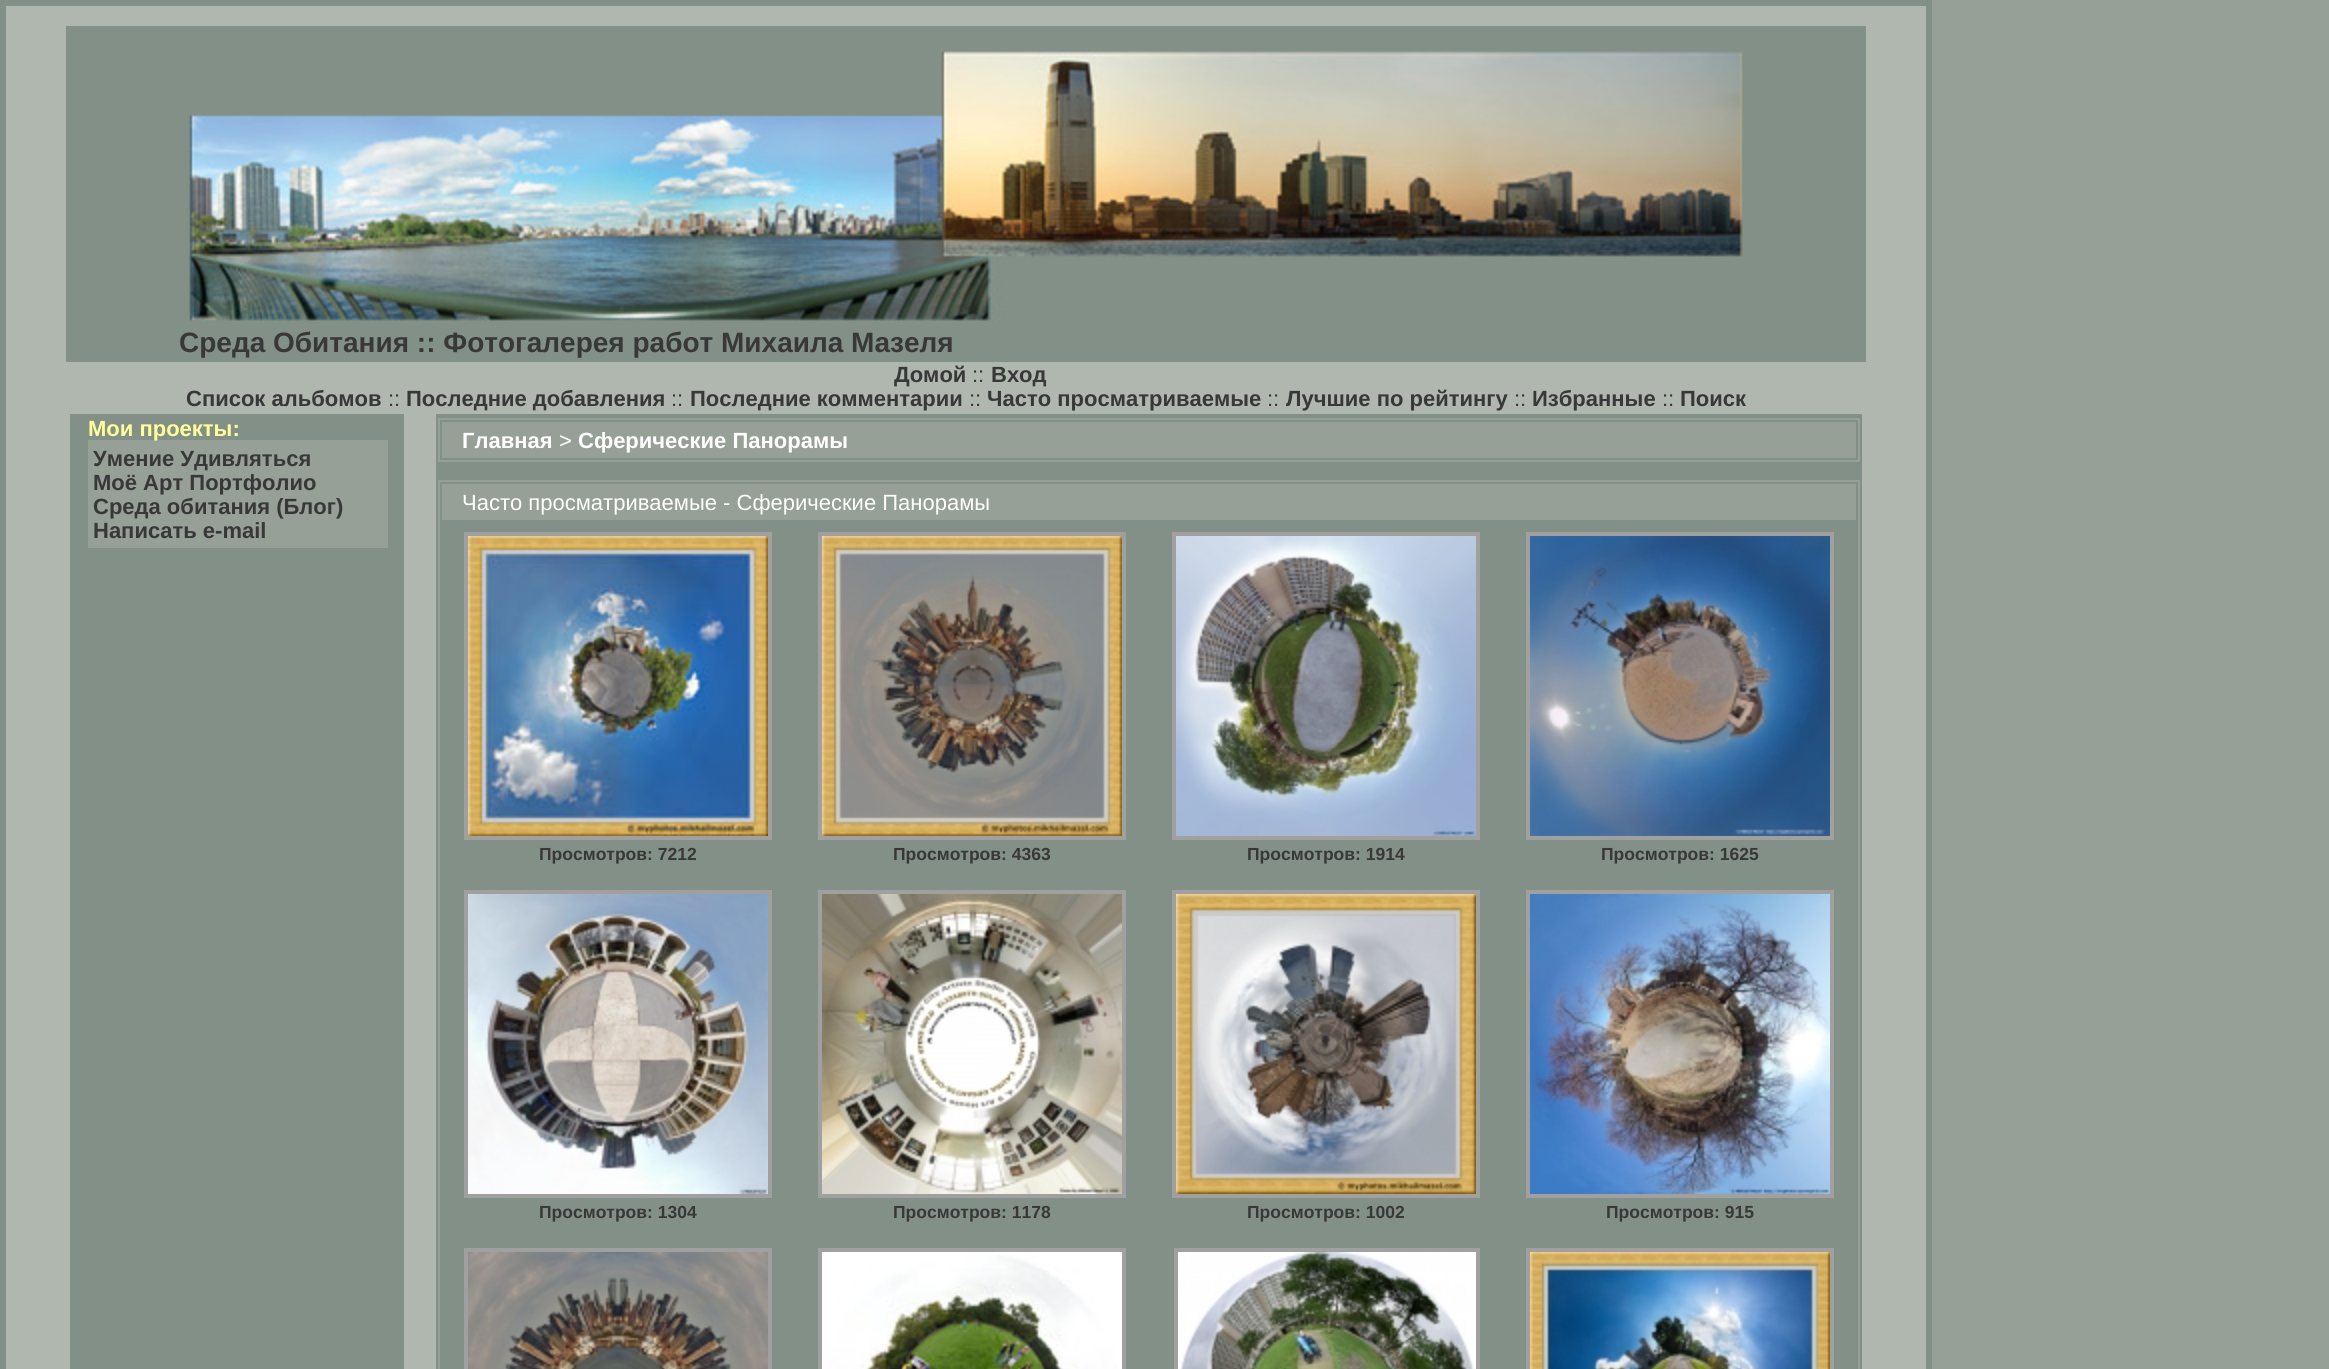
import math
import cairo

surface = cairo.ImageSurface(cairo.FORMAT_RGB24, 2329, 1369)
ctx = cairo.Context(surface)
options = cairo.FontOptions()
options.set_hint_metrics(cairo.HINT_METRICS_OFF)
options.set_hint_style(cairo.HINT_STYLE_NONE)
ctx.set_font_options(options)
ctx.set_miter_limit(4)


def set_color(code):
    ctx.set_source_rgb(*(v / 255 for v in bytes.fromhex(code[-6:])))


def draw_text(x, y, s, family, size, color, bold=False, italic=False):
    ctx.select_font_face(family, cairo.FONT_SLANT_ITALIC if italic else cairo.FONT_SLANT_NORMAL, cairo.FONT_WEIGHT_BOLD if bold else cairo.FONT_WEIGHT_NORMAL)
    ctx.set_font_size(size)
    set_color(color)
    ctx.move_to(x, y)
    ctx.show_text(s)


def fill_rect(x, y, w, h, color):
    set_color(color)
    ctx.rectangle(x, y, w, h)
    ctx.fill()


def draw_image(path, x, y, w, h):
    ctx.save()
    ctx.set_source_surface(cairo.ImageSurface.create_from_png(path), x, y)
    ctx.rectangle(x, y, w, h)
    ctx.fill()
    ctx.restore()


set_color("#96a096")
ctx.paint()
fill_rect(0, 0, 1932, 1369, "#839087")
fill_rect(6, 6, 1920, 1363, "#afb7af")
fill_rect(66, 26, 1800, 336, "#839087")
draw_image("assets/img1.png", 188, 50, 1555, 272)
draw_text(179, 352, "Среда Обитания :: Фотогалерея работ Михаила Мазеля", "Liberation Sans", 28, "#383838", bold=True)
draw_text(894, 382, "Домой", "Liberation Sans", 22, "#383838", bold=True)
draw_text(972, 382, "::", "Liberation Sans", 22, "#383838")
draw_text(991, 382, "Вход", "Liberation Sans", 22, "#383838", bold=True)
draw_text(186, 406, "Список альбомов", "Liberation Sans", 22, "#383838", bold=True)
draw_text(388, 406, "::", "Liberation Sans", 22, "#383838")
draw_text(406, 406, "Последние добавления", "Liberation Sans", 22, "#383838", bold=True)
draw_text(671, 406, "::", "Liberation Sans", 22, "#383838")
draw_text(690, 406, "Последние комментарии", "Liberation Sans", 22, "#383838", bold=True)
draw_text(969, 406, "::", "Liberation Sans", 22, "#383838")
draw_text(987, 406, "Часто просматриваемые", "Liberation Sans", 22, "#383838", bold=True)
draw_text(1267, 406, "::", "Liberation Sans", 22, "#383838")
draw_text(1286, 406, "Лучшие по рейтингу", "Liberation Sans", 22, "#383838", bold=True)
draw_text(1514, 406, "::", "Liberation Sans", 22, "#383838")
draw_text(1532, 406, "Избранные", "Liberation Sans", 22, "#383838", bold=True)
draw_text(1662, 406, "::", "Liberation Sans", 22, "#383838")
draw_text(1680, 406, "Поиск", "Liberation Sans", 22, "#383838", bold=True)
fill_rect(70, 414, 334, 955, "#839087")
fill_rect(88, 440, 300, 108, "#96a096")
draw_text(88, 436, "Мои проекты:", "Liberation Sans", 22, "#ffff99", bold=True)
draw_text(93, 466, "Умение Удивляться", "Liberation Sans", 22, "#383838", bold=True)
draw_text(93, 490, "Моё Арт Портфолио", "Liberation Sans", 22, "#383838", bold=True)
draw_text(93, 514, "Среда обитания (Блог)", "Liberation Sans", 22, "#383838", bold=True)
draw_text(93, 538, "Написать e-mail", "Liberation Sans", 22, "#383838", bold=True)
fill_rect(436, 414, 1426, 955, "#839087")
ctx.rectangle(439, 419, 1420, 42)
set_color("#96a096")
ctx.stroke()
fill_rect(442, 422, 1414, 36, "#96a096")
draw_text(462, 448, "Главная", "Liberation Sans", 22, "#ffffff", bold=True)
draw_text(559, 448, ">", "Liberation Sans", 22, "#ffffff")
draw_text(578, 448, "Сферические Панорамы", "Liberation Sans", 22, "#ffffff", bold=True)
ctx.rectangle(439, 481, 1420, 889)
set_color("#96a096")
ctx.stroke()
fill_rect(442, 484, 1414, 36, "#96a096")
draw_text(462, 510, "Часто просматриваемые - Сферические Панорамы", "Liberation Sans", 22, "#ffffff")
ctx.rectangle(466, 534, 304, 304)
set_color("#a0a0a0")
ctx.set_line_width(4)
ctx.stroke()
draw_image("assets/img2.png", 468, 536, 300, 300)
draw_text(539, 860, "Просмотров: 7212", "Liberation Sans", 17.5, "#383838", bold=True)
ctx.rectangle(820, 534, 304, 304)
set_color("#a0a0a0")
ctx.stroke()
draw_image("assets/img3.png", 822, 536, 300, 300)
draw_text(893, 860, "Просмотров: 4363", "Liberation Sans", 17.5, "#383838", bold=True)
ctx.rectangle(1174, 534, 304, 304)
set_color("#a0a0a0")
ctx.stroke()
draw_image("assets/img4.png", 1176, 536, 300, 300)
draw_text(1247, 860, "Просмотров: 1914", "Liberation Sans", 17.5, "#383838", bold=True)
ctx.rectangle(1528, 534, 304, 304)
set_color("#a0a0a0")
ctx.stroke()
draw_image("assets/img5.png", 1530, 536, 300, 300)
draw_text(1601, 860, "Просмотров: 1625", "Liberation Sans", 17.5, "#383838", bold=True)
ctx.rectangle(466, 892, 304, 304)
set_color("#a0a0a0")
ctx.stroke()
draw_image("assets/img6.png", 468, 894, 300, 300)
draw_text(539, 1218, "Просмотров: 1304", "Liberation Sans", 17.5, "#383838", bold=True)
ctx.rectangle(820, 892, 304, 304)
set_color("#a0a0a0")
ctx.stroke()
draw_image("assets/img7.png", 822, 894, 300, 300)
draw_text(893, 1218, "Просмотров: 1178", "Liberation Sans", 17.5, "#383838", bold=True)
ctx.rectangle(1174, 892, 304, 304)
set_color("#a0a0a0")
ctx.stroke()
draw_image("assets/img8.png", 1176, 894, 300, 300)
draw_text(1247, 1218, "Просмотров: 1002", "Liberation Sans", 17.5, "#383838", bold=True)
ctx.rectangle(1528, 892, 304, 304)
set_color("#a0a0a0")
ctx.stroke()
draw_image("assets/img9.png", 1530, 894, 300, 300)
draw_text(1606, 1218, "Просмотров: 915", "Liberation Sans", 17.5, "#383838", bold=True)
ctx.rectangle(466, 1250, 304, 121)
set_color("#a0a0a0")
ctx.stroke()
draw_image("assets/img10.png", 468, 1252, 300, 117)
ctx.rectangle(820, 1250, 304, 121)
ctx.stroke()
draw_image("assets/img11.png", 822, 1252, 300, 117)
ctx.rectangle(1176, 1250, 302, 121)
ctx.stroke()
draw_image("assets/img12.png", 1178, 1252, 298, 117)
ctx.rectangle(1528, 1250, 304, 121)
ctx.stroke()
draw_image("assets/img13.png", 1530, 1252, 300, 117)
surface.write_to_png("output.png")
